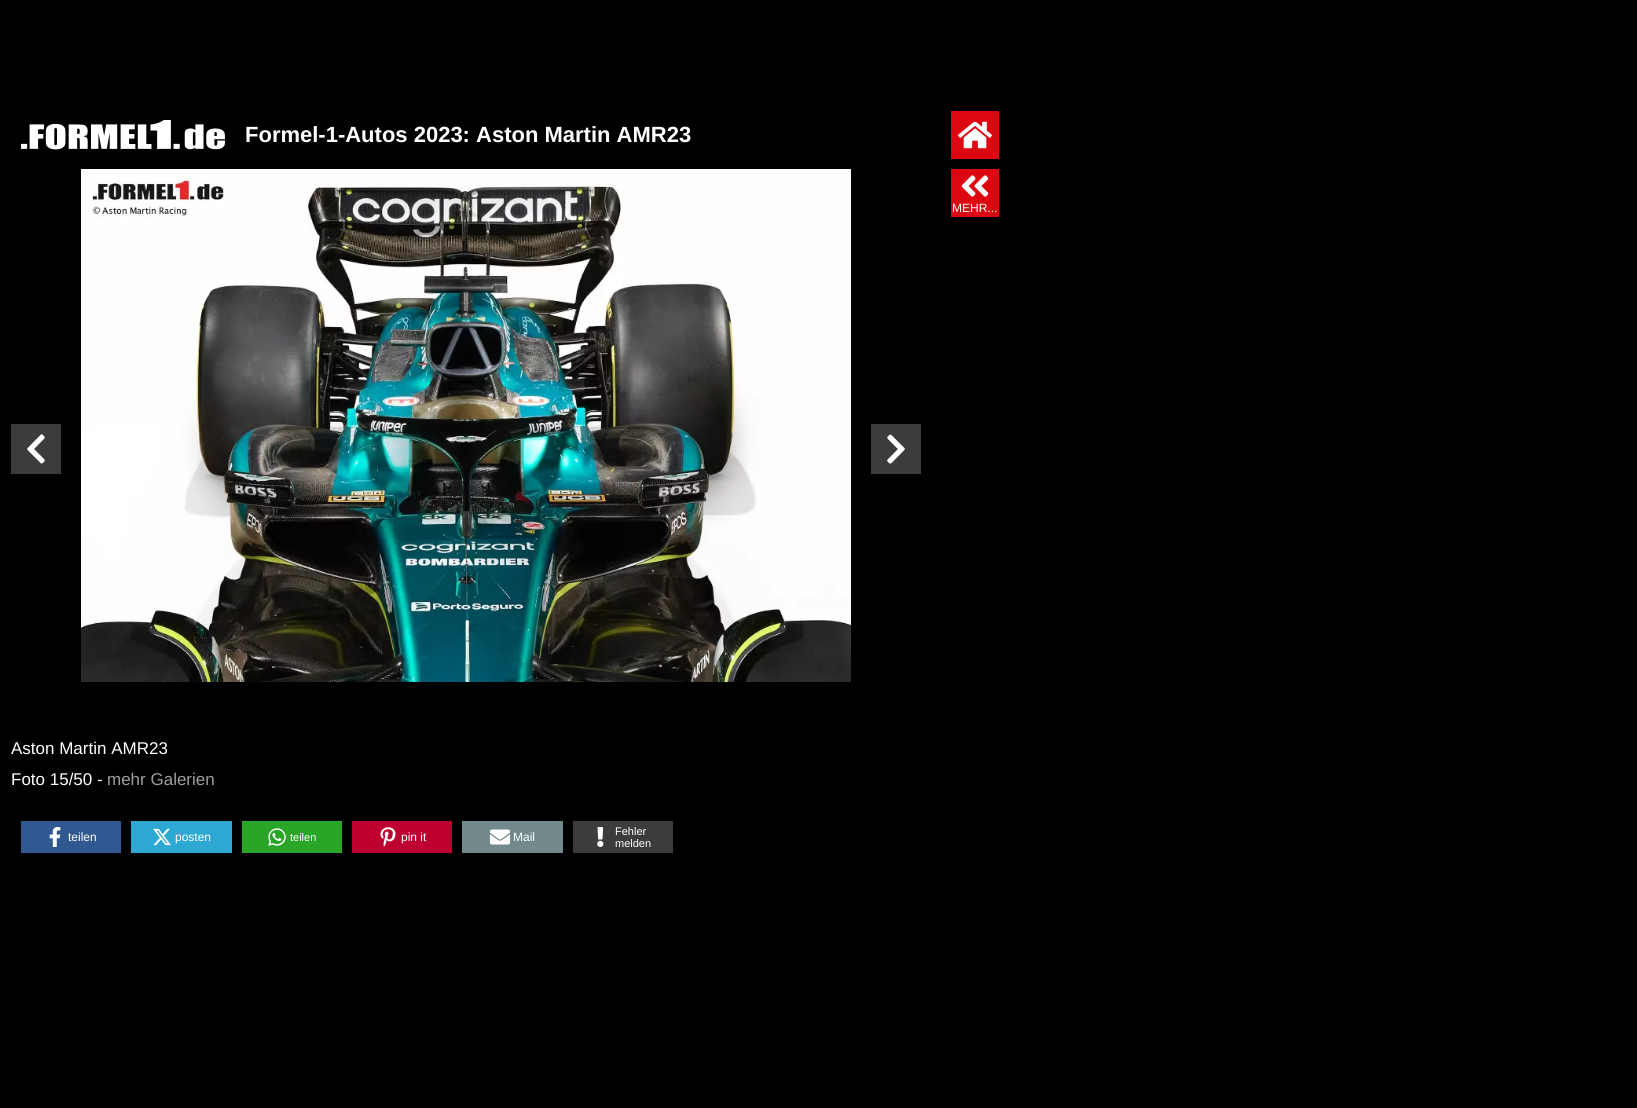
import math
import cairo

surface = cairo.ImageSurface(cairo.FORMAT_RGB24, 1637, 1108)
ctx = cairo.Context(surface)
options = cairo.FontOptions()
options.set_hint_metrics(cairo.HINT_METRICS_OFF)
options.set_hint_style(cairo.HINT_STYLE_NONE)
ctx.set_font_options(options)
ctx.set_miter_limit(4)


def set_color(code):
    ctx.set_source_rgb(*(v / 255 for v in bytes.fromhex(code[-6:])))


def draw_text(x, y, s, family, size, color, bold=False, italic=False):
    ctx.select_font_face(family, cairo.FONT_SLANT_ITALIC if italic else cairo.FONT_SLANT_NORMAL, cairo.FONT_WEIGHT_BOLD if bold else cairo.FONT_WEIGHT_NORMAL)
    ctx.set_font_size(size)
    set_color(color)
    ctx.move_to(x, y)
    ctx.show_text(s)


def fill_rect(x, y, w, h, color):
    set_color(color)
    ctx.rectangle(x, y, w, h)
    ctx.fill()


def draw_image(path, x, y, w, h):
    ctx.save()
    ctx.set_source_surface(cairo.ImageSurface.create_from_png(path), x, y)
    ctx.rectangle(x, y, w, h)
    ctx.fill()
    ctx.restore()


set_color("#000000")
ctx.paint()
draw_image("assets/img1.png", 21, 120, 204, 30)
draw_text(245, 142, "Formel-1-Autos 2023: Aston Martin AMR23", "Liberation Sans", 22, "#ffffff", bold=True)
fill_rect(951, 111, 48, 48, "#dc0711")
draw_image("assets/img2.png", 958, 121, 34, 28)
fill_rect(951, 169, 48, 48, "#dc0711")
draw_image("assets/img3.png", 961, 175, 28, 22)
draw_text(952, 212, "MEHR...", "Liberation Sans", 12, "#ffffff")
draw_image("assets/img4.png", 81, 169, 770, 513)
fill_rect(11, 424, 50, 50, "#3c3c3c")
draw_image("assets/img5.png", 27, 434, 18, 30)
fill_rect(871, 424, 50, 50, "#3c3c3c")
draw_image("assets/img6.png", 887, 434, 18, 30)
draw_text(11, 754, "Aston Martin AMR23", "Liberation Sans", 17, "#ffffff")
draw_text(11, 785, "Foto 15/50 -", "Liberation Sans", 17, "#ffffff")
draw_text(107, 785, "mehr Galerien", "Liberation Sans", 17, "#9e9e9e")
fill_rect(21, 821, 100, 32, "#305891")
draw_image("assets/img7.png", 49, 827, 12, 20)
draw_text(68, 841, "teilen", "Liberation Sans", 12, "#ffffff")
fill_rect(131, 821, 101, 32, "#2ca8d2")
draw_image("assets/img8.png", 153, 828, 18, 18)
draw_text(175, 841, "posten", "Liberation Sans", 12, "#ffffff")
fill_rect(242, 821, 100, 32, "#29a628")
draw_image("assets/img9.png", 268, 828, 18, 18)
draw_text(290, 841, "teilen", "Liberation Sans", 11, "#ffffff")
fill_rect(352, 821, 100, 32, "#bd0030")
draw_image("assets/img10.png", 380, 827, 16, 20)
draw_text(401, 841, "pin it", "Liberation Sans", 12, "#ffffff")
fill_rect(462, 821, 101, 32, "#738a8d")
draw_image("assets/img11.png", 490, 829, 20, 16)
draw_text(513, 841, "Mail", "Liberation Sans", 12, "#ffffff")
fill_rect(573, 821, 100, 32, "#3c3c3c")
draw_image("assets/img12.png", 597, 827, 7, 20)
draw_text(615, 835, "Fehler", "Liberation Sans", 11, "#ffffff")
draw_text(615, 847, "melden", "Liberation Sans", 11, "#ffffff")
surface.write_to_png("output.png")
